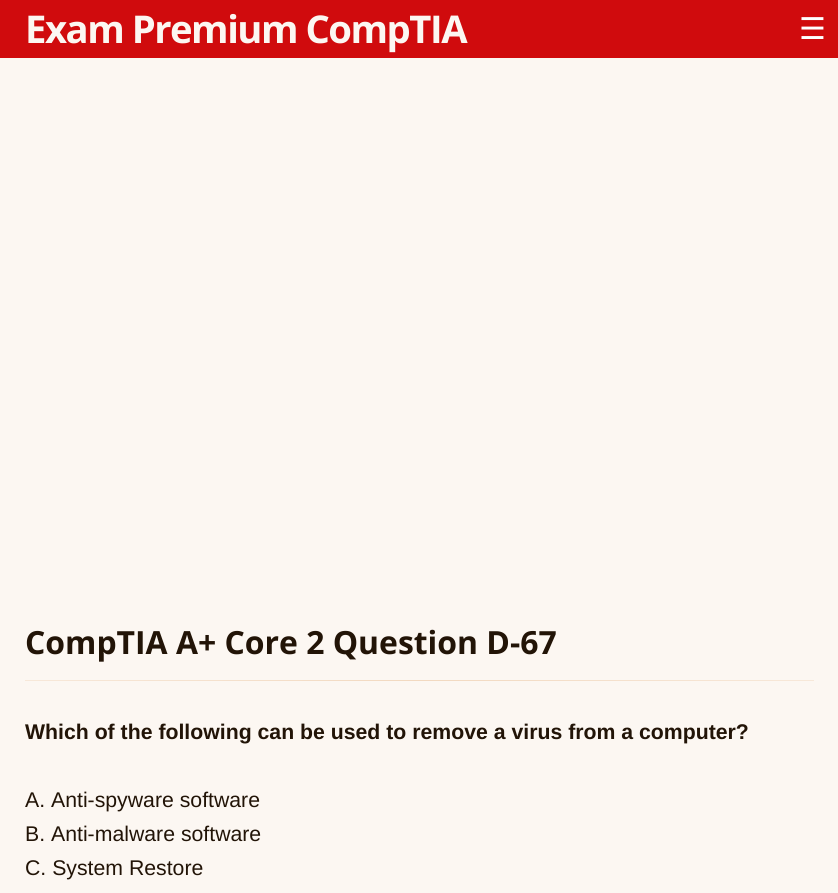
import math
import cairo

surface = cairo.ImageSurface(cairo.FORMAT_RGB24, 838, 893)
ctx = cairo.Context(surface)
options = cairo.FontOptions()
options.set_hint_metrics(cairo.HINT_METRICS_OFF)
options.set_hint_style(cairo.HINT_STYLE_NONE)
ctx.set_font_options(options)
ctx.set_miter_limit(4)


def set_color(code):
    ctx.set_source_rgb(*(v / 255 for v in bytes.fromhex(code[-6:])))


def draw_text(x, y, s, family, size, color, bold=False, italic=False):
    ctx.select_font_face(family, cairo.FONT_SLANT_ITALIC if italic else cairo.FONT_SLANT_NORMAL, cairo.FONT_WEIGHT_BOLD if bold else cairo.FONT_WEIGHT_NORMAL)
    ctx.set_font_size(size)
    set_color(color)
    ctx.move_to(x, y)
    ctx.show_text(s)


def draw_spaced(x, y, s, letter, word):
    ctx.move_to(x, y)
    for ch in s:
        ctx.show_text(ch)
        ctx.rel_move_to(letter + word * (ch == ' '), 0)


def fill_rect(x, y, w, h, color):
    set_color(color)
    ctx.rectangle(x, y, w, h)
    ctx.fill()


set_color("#fcf7f2")
ctx.paint()
fill_rect(0, 0, 838, 58, "#d00b0d")
ctx.select_font_face("Open Sans", cairo.FONT_SLANT_NORMAL, cairo.FONT_WEIGHT_BOLD)
ctx.set_font_size(38.25)
set_color("#fcf7f2")
draw_spaced(25, 43, "Exam Premium CompTIA", -1.5, 0)
draw_text(799, 39, "☰", "DejaVu Sans", 30, "#ffffff")
draw_text(25, 654, "CompTIA A+ Core 2 Question D-67", "Open Sans", 31.9, "#221407", bold=True)
gradient = cairo.LinearGradient(25, 681, 814, 681)
gradient.add_color_stop_rgba(0, 0.969, 0.91, 0.851, 1)
gradient.add_color_stop_rgba(0.5, 0.949, 0.851, 0.753, 1)
gradient.add_color_stop_rgba(1, 0.969, 0.91, 0.851, 1)
ctx.set_source(gradient)
ctx.rectangle(25, 680, 789, 1)
ctx.fill()
draw_text(25, 739, "Which of the following can be used to remove a virus from a computer?", "Liberation Sans", 21.25, "#221407", bold=True)
draw_text(25, 807, "A. Anti-spyware software", "Liberation Sans", 21.25, "#221407")
draw_text(25, 841, "B. Anti-malware software", "Liberation Sans", 21.25, "#221407")
draw_text(25, 875, "C. System Restore", "Liberation Sans", 21.25, "#221407")
surface.write_to_png("output.png")
